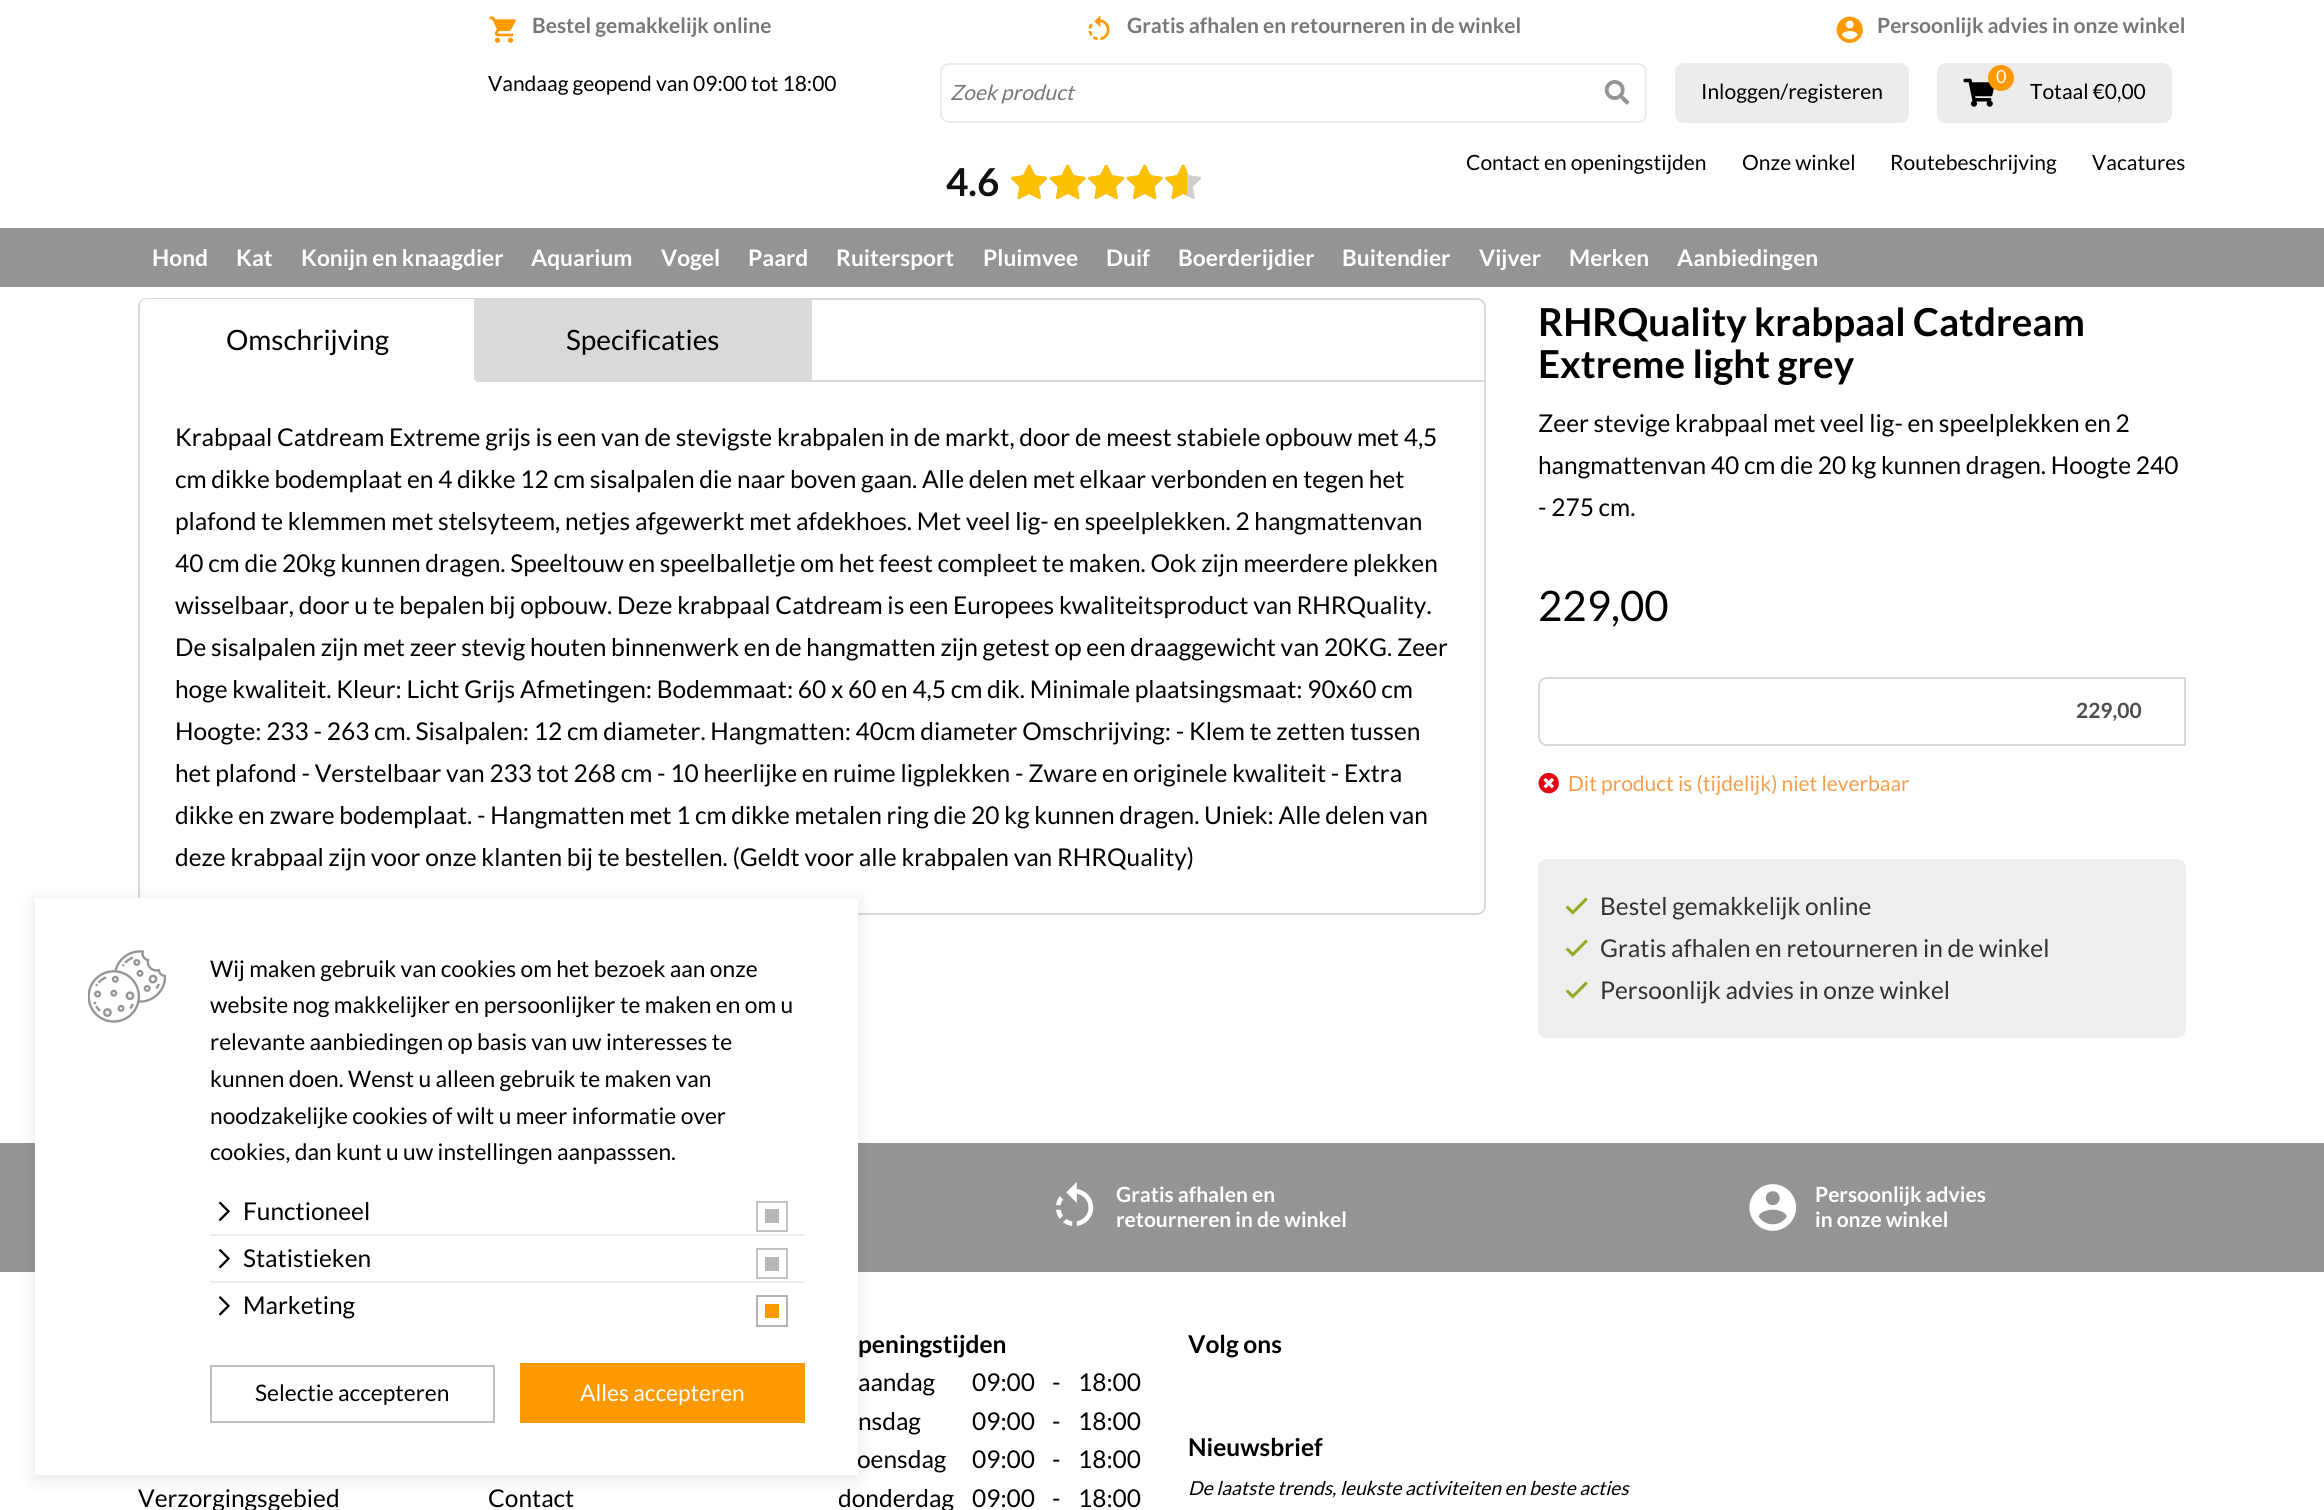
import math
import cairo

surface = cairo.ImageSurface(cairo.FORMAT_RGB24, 2324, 1510)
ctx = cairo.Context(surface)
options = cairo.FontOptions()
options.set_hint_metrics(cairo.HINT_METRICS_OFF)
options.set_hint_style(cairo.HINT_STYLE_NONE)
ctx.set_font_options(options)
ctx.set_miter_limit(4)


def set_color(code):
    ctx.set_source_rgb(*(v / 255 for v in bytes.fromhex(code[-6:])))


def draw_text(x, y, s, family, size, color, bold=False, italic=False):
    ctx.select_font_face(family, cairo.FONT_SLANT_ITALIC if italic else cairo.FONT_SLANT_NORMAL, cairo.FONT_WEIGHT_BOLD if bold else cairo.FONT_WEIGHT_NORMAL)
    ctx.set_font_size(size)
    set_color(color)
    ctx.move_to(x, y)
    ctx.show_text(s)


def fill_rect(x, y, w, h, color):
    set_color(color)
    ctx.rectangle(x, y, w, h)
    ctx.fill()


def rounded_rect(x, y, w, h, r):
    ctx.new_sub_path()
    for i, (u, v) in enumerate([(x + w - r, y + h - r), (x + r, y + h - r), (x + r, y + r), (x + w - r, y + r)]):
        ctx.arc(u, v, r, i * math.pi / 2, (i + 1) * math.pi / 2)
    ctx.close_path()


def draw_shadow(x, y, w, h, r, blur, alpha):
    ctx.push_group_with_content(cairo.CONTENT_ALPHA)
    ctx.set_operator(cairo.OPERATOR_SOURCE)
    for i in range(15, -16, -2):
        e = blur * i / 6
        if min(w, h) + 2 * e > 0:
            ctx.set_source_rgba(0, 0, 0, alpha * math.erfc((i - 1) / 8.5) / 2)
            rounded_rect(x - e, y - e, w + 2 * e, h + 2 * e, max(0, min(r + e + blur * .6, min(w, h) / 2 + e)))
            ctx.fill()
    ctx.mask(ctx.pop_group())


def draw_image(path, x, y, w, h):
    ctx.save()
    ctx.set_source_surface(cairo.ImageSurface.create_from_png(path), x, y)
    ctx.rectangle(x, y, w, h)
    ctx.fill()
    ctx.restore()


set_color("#ffffff")
ctx.paint()
draw_image("assets/img1.png", 489, 16, 27, 27)
draw_text(532, 33, "Bestel gemakkelijk online", "Lato", 21, "#777777", bold=True)
draw_image("assets/img2.png", 1088, 15, 22, 26)
draw_text(1127, 33, "Gratis afhalen en retourneren in de winkel", "Lato", 21, "#777777", bold=True)
draw_image("assets/img3.png", 1836, 16, 27, 27)
draw_text(1877, 33, "Persoonlijk advies in onze winkel", "Lato", 21, "#777777", bold=True)
draw_text(488, 91, "Vandaag geopend van 09:00 tot 18:00", "Lato", 21, "#000000")
rounded_rect(941, 64, 705, 58, 8)
set_color("#ececec")
ctx.stroke()
draw_text(950, 100, "Zoek product", "Lato", 21, "#777777", italic=True)
draw_image("assets/img4.png", 1604, 80, 26, 25)
set_color("#ececec")
rounded_rect(1675, 63, 234, 60, 9)
ctx.fill()
draw_text(1701, 99, "Inloggen/registeren", "Lato", 21, "#000000")
set_color("#ececec")
rounded_rect(1937, 63, 235, 60, 9)
ctx.fill()
draw_image("assets/img5.png", 1963, 78, 31, 29)
set_color("#ff9900")
ctx.arc(2001, 78, 13, 0, 2 * math.pi)
ctx.fill()
draw_text(1996, 83, "0", "Lato", 18, "#ffffff")
draw_text(2030, 99, "Totaal €0,00", "Lato", 21, "#000000")
draw_text(1466, 170, "Contact en openingstijden", "Lato", 21, "#000000")
draw_text(1742, 170, "Onze winkel", "Lato", 21, "#000000")
draw_text(1890, 170, "Routebeschrijving", "Lato", 21, "#000000")
draw_text(2092, 170, "Vacatures", "Lato", 21, "#000000")
draw_text(946, 196, "4.6", "Lato", 38.5, "#111111", bold=True)
draw_image("assets/img6.png", 1011, 164, 36, 35)
draw_image("assets/img7.png", 1011, 164, 37, 36)
draw_image("assets/img8.png", 1049, 164, 37, 35)
draw_image("assets/img9.png", 1049, 164, 37, 36)
draw_image("assets/img6.png", 1088, 164, 36, 35)
draw_image("assets/img7.png", 1088, 164, 37, 36)
draw_image("assets/img8.png", 1126, 164, 37, 35)
draw_image("assets/img9.png", 1126, 164, 37, 36)
draw_image("assets/img6.png", 1165, 164, 36, 35)
draw_image("assets/img10.png", 1165, 164, 22, 36)
fill_rect(0, 228, 2324, 59, "#949494")
draw_text(152, 266, "Hond", "Lato", 22.75, "#ffffff", bold=True)
draw_text(236, 266, "Kat", "Lato", 22.75, "#ffffff", bold=True)
draw_text(301, 266, "Konijn en knaagdier", "Lato", 22.75, "#ffffff", bold=True)
draw_text(531, 266, "Aquarium", "Lato", 22.75, "#ffffff", bold=True)
draw_text(661, 266, "Vogel", "Lato", 22.75, "#ffffff", bold=True)
draw_text(748, 266, "Paard", "Lato", 22.75, "#ffffff", bold=True)
draw_text(836, 266, "Ruitersport", "Lato", 22.75, "#ffffff", bold=True)
draw_text(983, 266, "Pluimvee", "Lato", 22.75, "#ffffff", bold=True)
draw_text(1106, 266, "Duif", "Lato", 22.75, "#ffffff", bold=True)
draw_text(1178, 266, "Boerderijdier", "Lato", 22.75, "#ffffff", bold=True)
draw_text(1342, 266, "Buitendier", "Lato", 22.75, "#ffffff", bold=True)
draw_text(1479, 266, "Vijver", "Lato", 22.75, "#ffffff", bold=True)
draw_text(1569, 266, "Merken", "Lato", 22.75, "#ffffff", bold=True)
draw_text(1677, 266, "Aanbiedingen", "Lato", 22.75, "#ffffff", bold=True)
rounded_rect(139, 299, 1346, 615, 8)
set_color("#d9d9d9")
ctx.stroke()
fill_rect(476, 380, 1008, 2, "#d9d9d9")
set_color("#ffffff")
ctx.new_path()
ctx.move_to(147, 299)
ctx.line_to(476, 299)
ctx.line_to(476, 380)
ctx.line_to(140, 380)
ctx.line_to(140, 306)
ctx.curve_to(140, 302, 143, 299, 147, 299)
ctx.close_path()
ctx.fill()
fill_rect(474, 299, 2, 81, "#d9d9d9")
draw_text(226, 350, "Omschrijving", "Lato", 28, "#000000")
fill_rect(476, 300, 336, 80, "#d9d9d9")
draw_text(566, 350, "Specificaties", "Lato", 28, "#000000")
draw_text(175, 446, "Krabpaal Catdream Extreme grijs is een van de stevigste krabpalen in de markt, door de meest stabiele opbouw met 4,5", "Lato", 24.5, "#000000")
draw_text(175, 488, "cm dikke bodemplaat en 4 dikke 12 cm sisalpalen die naar boven gaan. Alle delen met elkaar verbonden en tegen het", "Lato", 24.5, "#000000")
draw_text(175, 530, "plafond te klemmen met stelsyteem, netjes afgewerkt met afdekhoes. Met veel lig- en speelplekken. 2 hangmattenvan", "Lato", 24.5, "#000000")
draw_text(175, 572, "40 cm die 20kg kunnen dragen. Speeltouw en speelballetje om het feest compleet te maken. Ook zijn meerdere plekken", "Lato", 24.5, "#000000")
draw_text(175, 614, "wisselbaar, door u te bepalen bij opbouw. Deze krabpaal Catdream is een Europees kwaliteitsproduct van RHRQuality.", "Lato", 24.5, "#000000")
draw_text(175, 656, "De sisalpalen zijn met zeer stevig houten binnenwerk en de hangmatten zijn getest op een draaggewicht van 20KG. Zeer", "Lato", 24.5, "#000000")
draw_text(175, 698, "hoge kwaliteit. Kleur: Licht Grijs Afmetingen: Bodemmaat: 60 x 60 en 4,5 cm dik. Minimale plaatsingsmaat: 90x60 cm", "Lato", 24.5, "#000000")
draw_text(175, 740, "Hoogte: 233 - 263 cm. Sisalpalen: 12 cm diameter. Hangmatten: 40cm diameter Omschrijving: - Klem te zetten tussen", "Lato", 24.5, "#000000")
draw_text(175, 782, "het plafond - Verstelbaar van 233 tot 268 cm - 10 heerlijke en ruime ligplekken - Zware en originele kwaliteit - Extra", "Lato", 24.5, "#000000")
draw_text(175, 824, "dikke en zware bodemplaat. - Hangmatten met 1 cm dikke metalen ring die 20 kg kunnen dragen. Uniek: Alle delen van", "Lato", 24.5, "#000000")
draw_text(175, 866, "deze krabpaal zijn voor onze klanten bij te bestellen. (Geldt voor alle krabpalen van RHRQuality)", "Lato", 24.5, "#000000")
draw_text(1538, 336, "RHRQuality krabpaal Catdream", "Lato", 38.5, "#000000", bold=True)
draw_text(1538, 378, "Extreme light grey", "Lato", 38.5, "#000000", bold=True)
draw_text(1538, 432, "Zeer stevige krabpaal met veel lig- en speelplekken en 2", "Lato", 24.5, "#000000")
draw_text(1538, 474, "hangmattenvan 40 cm die 20 kg kunnen dragen. Hoogte 240", "Lato", 24.5, "#000000")
draw_text(1538, 516, "- 275 cm.", "Lato", 24.5, "#000000")
draw_text(1538, 621, "229,00", "Lato", 42, "#000000")
ctx.new_path()
ctx.move_to(1547, 678)
ctx.line_to(2185, 678)
ctx.line_to(2185, 745)
ctx.line_to(1547, 745)
ctx.curve_to(1542.5, 745, 1539, 741.5, 1539, 737)
ctx.line_to(1539, 686)
ctx.curve_to(1539, 681.5, 1542.5, 678, 1547, 678)
ctx.close_path()
set_color("#d9d9d9")
ctx.stroke()
draw_text(2076, 718, "229,00", "Lato", 21, "#4d4d4d", bold=True)
draw_image("assets/img11.png", 1538, 773, 21, 21)
draw_text(1568, 791, "Dit product is (tijdelijk) niet leverbaar", "Lato", 21, "#f89d48")
set_color("#eeeeee")
rounded_rect(1538, 859, 648, 179, 9)
ctx.fill()
draw_image("assets/img12.png", 1565, 897, 23, 18)
draw_text(1600, 915, "Bestel gemakkelijk online", "Lato", 24.5, "#333333")
draw_image("assets/img12.png", 1565, 939, 23, 18)
draw_text(1600, 957, "Gratis afhalen en retourneren in de winkel", "Lato", 24.5, "#333333")
draw_image("assets/img12.png", 1565, 981, 23, 18)
draw_text(1600, 999, "Persoonlijk advies in onze winkel", "Lato", 24.5, "#333333")
fill_rect(0, 1143, 2324, 129, "#949494")
draw_image("assets/img13.png", 1056, 1182, 38, 44)
draw_text(1116, 1202, "Gratis afhalen en", "Lato", 21, "#ffffff", bold=True)
draw_text(1116, 1227, "retourneren in de winkel", "Lato", 21, "#ffffff", bold=True)
draw_image("assets/img14.png", 1749, 1184, 48, 47)
draw_text(1815, 1202, "Persoonlijk advies", "Lato", 21, "#ffffff", bold=True)
draw_text(1815, 1227, "in onze winkel", "Lato", 21, "#ffffff", bold=True)
draw_text(138, 1507, "Verzorgingsgebied", "Lato", 24.5, "#000000")
draw_text(488, 1507, "Contact", "Lato", 24.5, "#000000")
draw_text(858, 1353, "peningstijden", "Lato", 24.5, "#000000", bold=True)
draw_text(858, 1391, "aandag", "Lato", 24.5, "#000000")
draw_text(972, 1391, "09:00", "Lato", 24.5, "#000000")
draw_text(1052, 1391, "-", "Lato", 24.5, "#000000")
draw_text(1078, 1391, "18:00", "Lato", 24.5, "#000000")
draw_text(858, 1430, "nsdag", "Lato", 24.5, "#000000")
draw_text(972, 1430, "09:00", "Lato", 24.5, "#000000")
draw_text(1052, 1430, "-", "Lato", 24.5, "#000000")
draw_text(1078, 1430, "18:00", "Lato", 24.5, "#000000")
draw_text(857, 1468, "oensdag", "Lato", 24.5, "#000000")
draw_text(972, 1468, "09:00", "Lato", 24.5, "#000000")
draw_text(1052, 1468, "-", "Lato", 24.5, "#000000")
draw_text(1078, 1468, "18:00", "Lato", 24.5, "#000000")
draw_text(838, 1507, "donderdag", "Lato", 24.5, "#000000")
draw_text(972, 1507, "09:00", "Lato", 24.5, "#000000")
draw_text(1052, 1507, "-", "Lato", 24.5, "#000000")
draw_text(1078, 1507, "18:00", "Lato", 24.5, "#000000")
draw_text(1188, 1353, "Volg ons", "Lato", 24.5, "#000000", bold=True)
draw_text(1188, 1456, "Nieuwsbrief", "Lato", 24.5, "#000000", bold=True)
draw_text(1188, 1495, "De laatste trends, leukste activiteiten en beste acties", "Lato", 19.25, "#000000", italic=True)
set_color("#000000")
draw_shadow(35, 901, 823, 578, 0, 9, 0.1)
fill_rect(35, 898, 823, 577, "#ffffff")
draw_image("assets/img15.png", 88, 950, 78, 73)
draw_text(210, 977, "Wij maken gebruik van cookies om het bezoek aan onze", "Lato", 22.75, "#000000")
draw_text(210, 1013, "website nog makkelijker en persoonlijker te maken en om u", "Lato", 22.75, "#000000")
draw_text(210, 1050, "relevante aanbiedingen op basis van uw interesses te", "Lato", 22.75, "#000000")
draw_text(210, 1087, "kunnen doen. Wenst u alleen gebruik te maken van", "Lato", 22.75, "#000000")
draw_text(210, 1124, "noodzakelijke cookies of wilt u meer informatie over", "Lato", 22.75, "#000000")
draw_text(210, 1160, "cookies, dan kunt u uw instellingen aanpasssen.", "Lato", 22.75, "#000000")
draw_image("assets/img16.png", 218, 1201, 12, 20)
draw_text(243, 1220, "Functioneel", "Lato", 24.5, "#000000")
ctx.rectangle(757, 1202, 30, 29)
set_color("#c2c2c2")
ctx.stroke()
fill_rect(765, 1209, 14, 14, "#b6b6b6")
fill_rect(210, 1234, 595, 2, "#eeeeee")
draw_image("assets/img17.png", 218, 1248, 12, 21)
draw_text(243, 1267, "Statistieken", "Lato", 24.5, "#000000")
ctx.rectangle(757, 1249, 30, 29)
set_color("#c2c2c2")
ctx.stroke()
fill_rect(765, 1257, 14, 14, "#b6b6b6")
fill_rect(210, 1281, 595, 2, "#eeeeee")
draw_image("assets/img18.png", 218, 1296, 12, 20)
draw_text(243, 1314, "Marketing", "Lato", 24.5, "#000000")
ctx.rectangle(757, 1296, 30, 30)
set_color("#b3b3b3")
ctx.stroke()
fill_rect(765, 1304, 14, 14, "#ff9900")
ctx.rectangle(211, 1366, 283, 56)
set_color("#c0c0c0")
ctx.stroke()
draw_text(255, 1401, "Selectie accepteren", "Lato", 22.75, "#000000")
fill_rect(520, 1363, 285, 60, "#ff9900")
draw_text(580, 1401, "Alles accepteren", "Lato", 22.75, "#ffffff")
surface.write_to_png("output.png")
